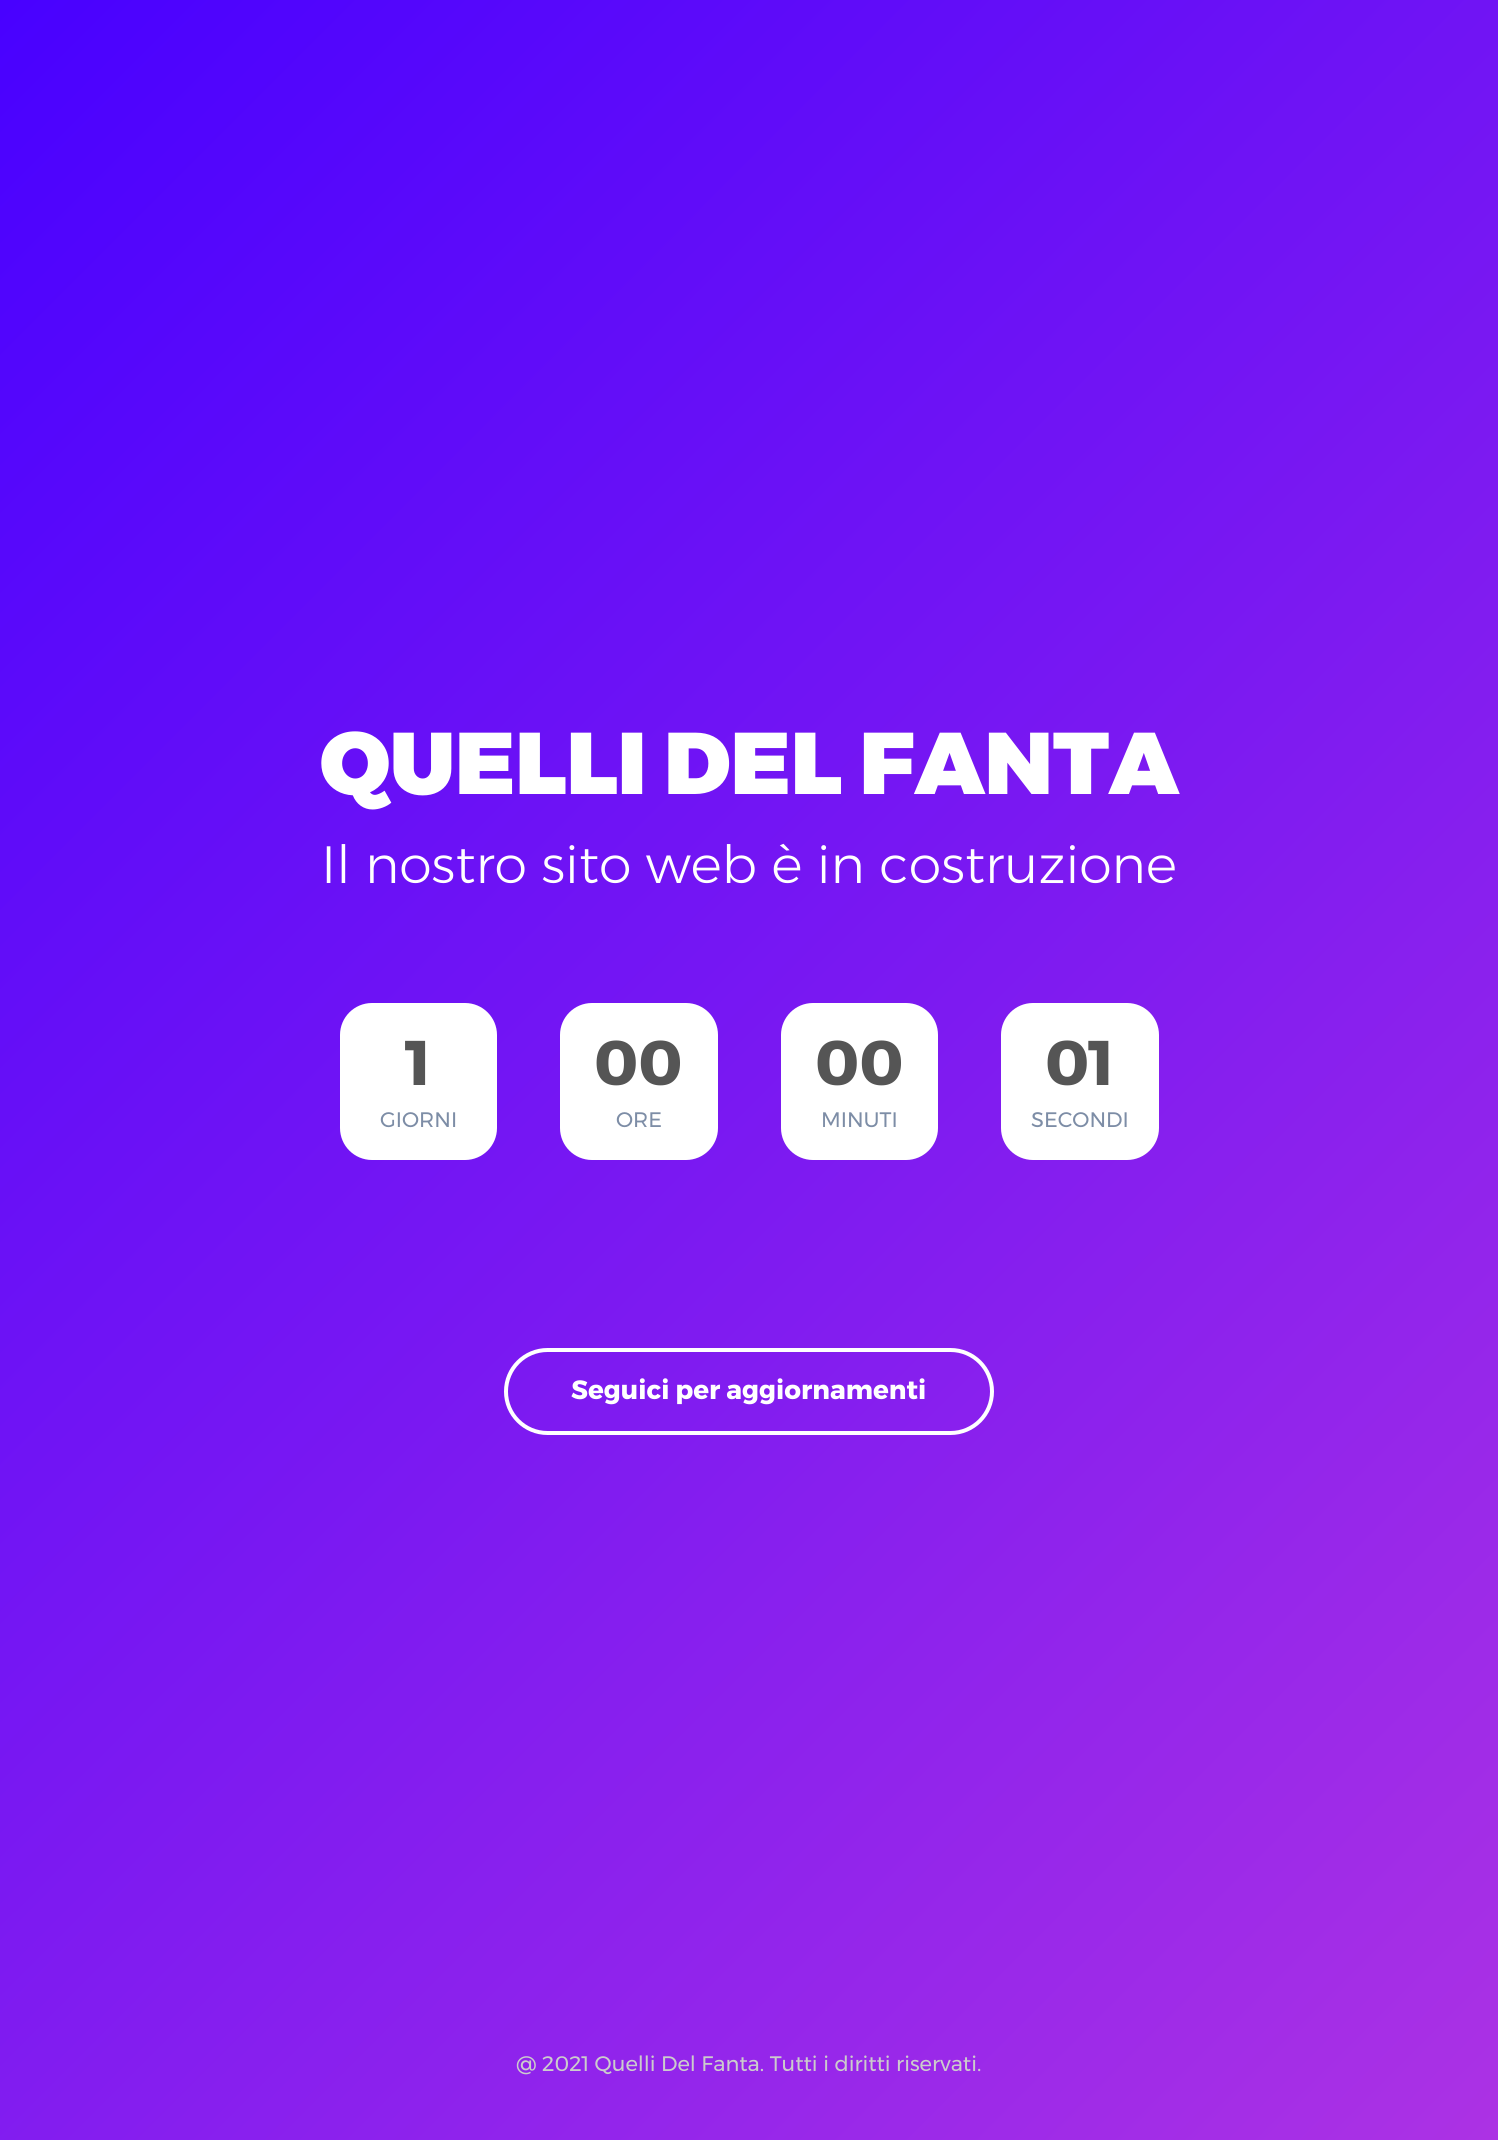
import math
import cairo

surface = cairo.ImageSurface(cairo.FORMAT_RGB24, 1498, 2140)
ctx = cairo.Context(surface)
options = cairo.FontOptions()
options.set_hint_metrics(cairo.HINT_METRICS_OFF)
options.set_hint_style(cairo.HINT_STYLE_NONE)
ctx.set_font_options(options)
ctx.set_miter_limit(4)


def set_color(code):
    ctx.set_source_rgb(*(v / 255 for v in bytes.fromhex(code[-6:])))


def draw_text(x, y, s, family, size, color, bold=False, italic=False):
    ctx.select_font_face(family, cairo.FONT_SLANT_ITALIC if italic else cairo.FONT_SLANT_NORMAL, cairo.FONT_WEIGHT_BOLD if bold else cairo.FONT_WEIGHT_NORMAL)
    ctx.set_font_size(size)
    set_color(color)
    ctx.move_to(x, y)
    ctx.show_text(s)


def rounded_rect(x, y, w, h, r):
    ctx.new_sub_path()
    for i, (u, v) in enumerate([(x + w - r, y + h - r), (x + r, y + h - r), (x + r, y + r), (x + w - r, y + r)]):
        ctx.arc(u, v, r, i * math.pi / 2, (i + 1) * math.pi / 2)
    ctx.close_path()


set_color("#ffffff")
ctx.paint()
gradient = cairo.LinearGradient(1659, 1980, -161, 161)
gradient.add_color_stop_rgba(0, 0.675, 0.196, 0.894, 1)
gradient.add_color_stop_rgba(0.5, 0.475, 0.094, 0.949, 1)
gradient.add_color_stop_rgba(1, 0.282, 0.004, 1, 1)
ctx.set_source(gradient)
ctx.rectangle(0, 0, 1498, 2140)
ctx.fill()
draw_text(320, 794, "QUELLI DEL FANTA", "Montserrat Black", 87.5, "#ffffff")
draw_text(321, 883, "Il nostro sito web è in costruzione", "Montserrat Light", 52.5, "#ffffff")
rounded_rect(340, 1003, 157, 157, 32)
ctx.fill()
draw_text(406, 1085, "1", "Montserrat", 63, "#555555", bold=True)
draw_text(380, 1127, "GIORNI", "Montserrat", 21, "#7d8da6")
set_color("#ffffff")
rounded_rect(560, 1003, 158, 157, 32)
ctx.fill()
draw_text(594, 1085, "00", "Montserrat", 63, "#555555", bold=True)
draw_text(616, 1127, "ORE", "Montserrat", 21, "#7d8da6")
set_color("#ffffff")
rounded_rect(781, 1003, 157, 157, 32)
ctx.fill()
draw_text(815, 1085, "00", "Montserrat", 63, "#555555", bold=True)
draw_text(821, 1127, "MINUTI", "Montserrat", 21, "#7d8da6")
set_color("#ffffff")
rounded_rect(1001, 1003, 158, 157, 32)
ctx.fill()
draw_text(1045, 1085, "01", "Montserrat", 63, "#555555", bold=True)
draw_text(1031, 1127, "SECONDI", "Montserrat", 21, "#7d8da6")
rounded_rect(506, 1350, 486, 83, 41.5)
set_color("#ffffff")
ctx.set_line_width(4)
ctx.stroke()
draw_text(571, 1399, "Seguici per aggiornamenti", "Montserrat", 26.25, "#ffffff", bold=True)
draw_text(516, 2071, "@ 2021 Quelli Del Fanta. Tutti i diritti riservati.", "Montserrat", 21, "#cccccc")
surface.write_to_png("output.png")
